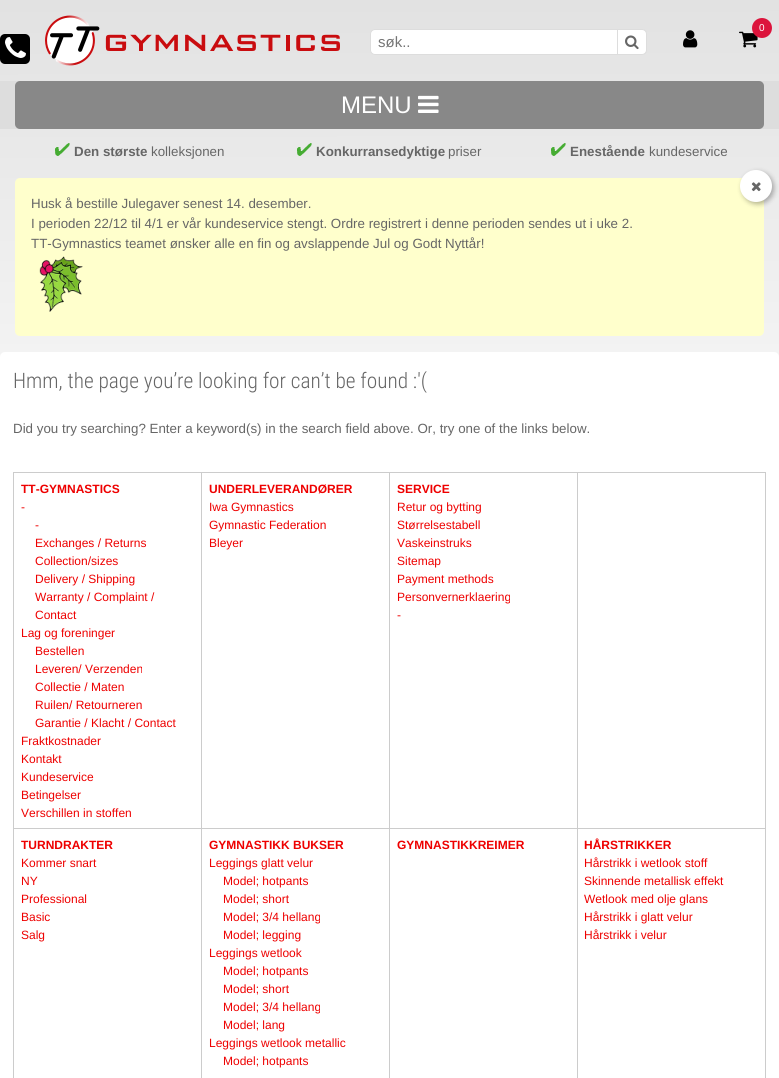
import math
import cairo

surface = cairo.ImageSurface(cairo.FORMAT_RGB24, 779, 1078)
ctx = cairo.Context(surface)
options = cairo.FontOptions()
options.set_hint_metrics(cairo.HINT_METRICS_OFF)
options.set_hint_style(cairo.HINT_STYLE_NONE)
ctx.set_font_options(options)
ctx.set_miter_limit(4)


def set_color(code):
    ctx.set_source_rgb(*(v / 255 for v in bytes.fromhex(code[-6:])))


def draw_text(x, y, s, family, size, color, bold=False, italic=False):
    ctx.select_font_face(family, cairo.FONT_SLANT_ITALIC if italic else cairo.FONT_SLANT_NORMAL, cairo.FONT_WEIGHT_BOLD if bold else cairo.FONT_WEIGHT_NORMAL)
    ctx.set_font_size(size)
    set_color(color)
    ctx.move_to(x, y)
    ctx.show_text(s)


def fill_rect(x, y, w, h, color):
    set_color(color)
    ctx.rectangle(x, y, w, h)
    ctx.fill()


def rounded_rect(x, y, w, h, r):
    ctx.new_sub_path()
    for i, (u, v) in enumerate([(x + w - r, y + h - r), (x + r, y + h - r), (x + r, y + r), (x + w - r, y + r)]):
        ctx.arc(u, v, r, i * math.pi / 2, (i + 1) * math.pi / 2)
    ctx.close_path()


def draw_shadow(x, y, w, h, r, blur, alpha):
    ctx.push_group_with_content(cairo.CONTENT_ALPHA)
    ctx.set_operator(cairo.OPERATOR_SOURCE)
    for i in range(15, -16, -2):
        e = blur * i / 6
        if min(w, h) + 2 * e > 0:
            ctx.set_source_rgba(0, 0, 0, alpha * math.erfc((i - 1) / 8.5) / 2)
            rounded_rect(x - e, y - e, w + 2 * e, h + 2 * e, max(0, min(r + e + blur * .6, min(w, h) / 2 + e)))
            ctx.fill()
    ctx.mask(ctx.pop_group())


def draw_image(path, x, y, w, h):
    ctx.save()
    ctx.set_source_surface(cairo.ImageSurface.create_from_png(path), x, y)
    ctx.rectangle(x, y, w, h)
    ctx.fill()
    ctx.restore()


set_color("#ffffff")
ctx.paint()
gradient = cairo.LinearGradient(389, 0, 390, 1078)
gradient.add_color_stop_rgba(0, 0.886, 0.886, 0.886, 1)
gradient.add_color_stop_rgba(0.56, 1, 1, 1, 1)
gradient.add_color_stop_rgba(0.78, 0.941, 0.941, 0.941, 1)
gradient.add_color_stop_rgba(1, 0.886, 0.886, 0.886, 1)
ctx.set_source(gradient)
ctx.rectangle(0, 0, 779, 357)
ctx.fill()
draw_image("assets/img1.png", 45, 15, 295, 51)
draw_image("assets/img2.png", 739, 31, 19, 17)
set_color("#dc143c")
ctx.arc(762, 28, 10, 0, 2 * math.pi)
ctx.fill()
draw_text(759, 31, "0", "Liberation Sans", 10, "#ffffff")
set_color("#000000")
rounded_rect(0, 34, 30, 30, 5)
ctx.fill()
draw_image("assets/img3.png", 5, 37, 21, 21)
set_color("#ffffff")
rounded_rect(370.5, 29.5, 276, 25, 4.5)
ctx.fill_preserve()
set_color("#dddddd")
ctx.set_line_width(1)
ctx.stroke()
draw_text(378, 47, "søk..", "Liberation Sans", 15, "#757575")
set_color("#ffffff")
ctx.new_path()
ctx.move_to(617.5, 29.5)
ctx.line_to(642, 29.5)
ctx.curve_to(644.5, 29.5, 646.5, 31.5, 646.5, 34)
ctx.line_to(646.5, 50)
ctx.curve_to(646.5, 52.5, 644.5, 54.5, 642, 54.5)
ctx.line_to(617.5, 54.5)
ctx.close_path()
ctx.fill_preserve()
set_color("#dddddd")
ctx.stroke()
draw_image("assets/img4.png", 625, 35, 14, 15)
draw_image("assets/img5.png", 683, 30, 15, 18)
fill_rect(0, 81, 779, 48, "#dddddd")
set_color("#888888")
rounded_rect(15, 81, 749, 48, 5)
ctx.fill()
draw_text(341, 113, "MENU", "Liberation Sans", 24, "#ffffff")
draw_image("assets/img6.png", 418, 95, 21, 18)
draw_image("assets/img7.png", 55, 143, 15, 13)
draw_text(74, 156, "Den største", "Liberation Sans", 13.35, "#666666", bold=True)
draw_text(151, 156, "kolleksjonen", "Liberation Sans", 13.35, "#666666")
draw_image("assets/img7.png", 297, 143, 15, 13)
draw_text(316, 156, "Konkurransedyktige", "Liberation Sans", 13.35, "#666666", bold=True)
draw_text(448, 156, "priser", "Liberation Sans", 13.35, "#666666")
draw_image("assets/img7.png", 551, 143, 15, 13)
draw_text(570, 156, "Enestående", "Liberation Sans", 13.35, "#666666", bold=True)
draw_text(649, 156, "kundeservice", "Liberation Sans", 13.35, "#666666")
set_color("#ffffcc")
rounded_rect(15, 178, 749, 158, 5)
ctx.fill()
set_color("#000000")
draw_shadow(742, 172, 32, 32, 16, 2.5, 0.3)
set_color("#ffffff")
ctx.arc(756, 186, 16, 0, 2 * math.pi)
ctx.fill()
draw_image("assets/img8.png", 751, 182, 10, 10)
draw_text(31, 208, "Husk å bestille Julegaver senest 14. desember.", "Liberation Sans", 13.35, "#666666")
draw_text(31, 228, "I perioden 22/12 til 4/1 er vår kundeservice stengt. Ordre registrert i denne perioden sendes ut i uke 2.", "Liberation Sans", 13.35, "#666666")
draw_text(31, 248, "TT-Gymnastics teamet ønsker alle en fin og avslappende Jul og Godt Nyttår!", "Liberation Sans", 13.35, "#666666")
draw_image("assets/img9.png", 39, 256, 44, 56)
set_color("#ffffff")
rounded_rect(0, 352, 779, 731, 5)
ctx.fill()
draw_text(13, 388, "Hmm, the page you’re looking for can’t be found :'(", "Roboto Condensed Light", 21.3, "#666666")
draw_text(13, 433, "Did you try searching? Enter a keyword(s) in the search field above. Or, try one of the links below.", "Liberation Sans", 13.35, "#666666")
fill_rect(13, 472, 753, 1, "#cccccc")
fill_rect(765, 472, 1, 606, "#cccccc")
fill_rect(13, 472, 1, 606, "#cccccc")
draw_text(21, 493, "TT-GYMNASTICS", "Liberation Sans", 12, "#ee0000", bold=True)
draw_text(21, 511, "-", "Liberation Sans", 12, "#ee0000")
draw_text(35, 529, "-", "Liberation Sans", 12, "#ee0000")
draw_text(35, 547, "Exchanges / Returns", "Liberation Sans", 12, "#ee0000")
draw_text(35, 565, "Collection/sizes", "Liberation Sans", 12, "#ee0000")
draw_text(35, 583, "Delivery / Shipping", "Liberation Sans", 12, "#ee0000")
draw_text(35, 601, "Warranty / Complaint /", "Liberation Sans", 12, "#ee0000")
draw_text(35, 619, "Contact", "Liberation Sans", 12, "#ee0000")
draw_text(21, 637, "Lag og foreninger", "Liberation Sans", 12, "#ee0000")
draw_text(35, 655, "Bestellen", "Liberation Sans", 12, "#ee0000")
draw_text(35, 673, "Leveren/ Verzenden", "Liberation Sans", 12, "#ee0000")
draw_text(35, 691, "Collectie / Maten", "Liberation Sans", 12, "#ee0000")
draw_text(35, 709, "Ruilen/ Retourneren", "Liberation Sans", 12, "#ee0000")
draw_text(35, 727, "Garantie / Klacht / Contact", "Liberation Sans", 12, "#ee0000")
draw_text(21, 745, "Fraktkostnader", "Liberation Sans", 12, "#ee0000")
draw_text(21, 763, "Kontakt", "Liberation Sans", 12, "#ee0000")
draw_text(21, 781, "Kundeservice", "Liberation Sans", 12, "#ee0000")
draw_text(21, 799, "Betingelser", "Liberation Sans", 12, "#ee0000")
draw_text(21, 817, "Verschillen in stoffen", "Liberation Sans", 12, "#ee0000")
fill_rect(577, 828, 189, 1, "#cccccc")
fill_rect(577, 828, 1, 250, "#cccccc")
fill_rect(389, 828, 189, 1, "#cccccc")
fill_rect(389, 828, 1, 250, "#cccccc")
fill_rect(201, 828, 189, 1, "#cccccc")
fill_rect(201, 828, 1, 250, "#cccccc")
fill_rect(13, 828, 189, 1, "#cccccc")
fill_rect(201, 472, 1, 357, "#cccccc")
draw_text(209, 493, "UNDERLEVERANDØRER", "Liberation Sans", 12, "#ee0000", bold=True)
draw_text(209, 511, "Iwa Gymnastics", "Liberation Sans", 12, "#ee0000")
draw_text(209, 529, "Gymnastic Federation", "Liberation Sans", 12, "#ee0000")
draw_text(209, 547, "Bleyer", "Liberation Sans", 12, "#ee0000")
fill_rect(577, 472, 1, 357, "#cccccc")
fill_rect(389, 472, 1, 357, "#cccccc")
draw_text(397, 493, "SERVICE", "Liberation Sans", 12, "#ee0000", bold=True)
draw_text(397, 511, "Retur og bytting", "Liberation Sans", 12, "#ee0000")
draw_text(397, 529, "Størrelsestabell", "Liberation Sans", 12, "#ee0000")
draw_text(397, 547, "Vaskeinstruks", "Liberation Sans", 12, "#ee0000")
draw_text(397, 565, "Sitemap", "Liberation Sans", 12, "#ee0000")
draw_text(397, 583, "Payment methods", "Liberation Sans", 12, "#ee0000")
draw_text(397, 601, "Personvernerklaering", "Liberation Sans", 12, "#ee0000")
draw_text(397, 619, "-", "Liberation Sans", 12, "#ee0000")
draw_text(21, 849, "TURNDRAKTER", "Liberation Sans", 12, "#ee0000", bold=True)
draw_text(21, 867, "Kommer snart", "Liberation Sans", 12, "#ee0000")
draw_text(21, 885, "NY", "Liberation Sans", 12, "#ee0000")
draw_text(21, 903, "Professional", "Liberation Sans", 12, "#ee0000")
draw_text(21, 921, "Basic", "Liberation Sans", 12, "#ee0000")
draw_text(21, 939, "Salg", "Liberation Sans", 12, "#ee0000")
draw_text(209, 849, "GYMNASTIKK BUKSER", "Liberation Sans", 12, "#ee0000", bold=True)
draw_text(209, 867, "Leggings glatt velur", "Liberation Sans", 12, "#ee0000")
draw_text(223, 885, "Model; hotpants", "Liberation Sans", 12, "#ee0000")
draw_text(223, 903, "Model; short", "Liberation Sans", 12, "#ee0000")
draw_text(223, 921, "Model; 3/4 hellang", "Liberation Sans", 12, "#ee0000")
draw_text(223, 939, "Model; legging", "Liberation Sans", 12, "#ee0000")
draw_text(209, 957, "Leggings wetlook", "Liberation Sans", 12, "#ee0000")
draw_text(223, 975, "Model; hotpants", "Liberation Sans", 12, "#ee0000")
draw_text(223, 993, "Model; short", "Liberation Sans", 12, "#ee0000")
draw_text(223, 1011, "Model; 3/4 hellang", "Liberation Sans", 12, "#ee0000")
draw_text(223, 1029, "Model; lang", "Liberation Sans", 12, "#ee0000")
draw_text(209, 1047, "Leggings wetlook metallic", "Liberation Sans", 12, "#ee0000")
draw_text(223, 1065, "Model; hotpants", "Liberation Sans", 12, "#ee0000")
draw_text(397, 849, "GYMNASTIKKREIMER", "Liberation Sans", 12, "#ee0000", bold=True)
draw_text(584, 849, "HÅRSTRIKKER", "Liberation Sans", 12, "#ee0000", bold=True)
draw_text(584, 867, "Hårstrikk i wetlook stoff", "Liberation Sans", 12, "#ee0000")
draw_text(584, 885, "Skinnende metallisk effekt", "Liberation Sans", 12, "#ee0000")
draw_text(584, 903, "Wetlook med olje glans", "Liberation Sans", 12, "#ee0000")
draw_text(584, 921, "Hårstrikk i glatt velur", "Liberation Sans", 12, "#ee0000")
draw_text(584, 939, "Hårstrikk i velur", "Liberation Sans", 12, "#ee0000")
surface.write_to_png("output.png")
